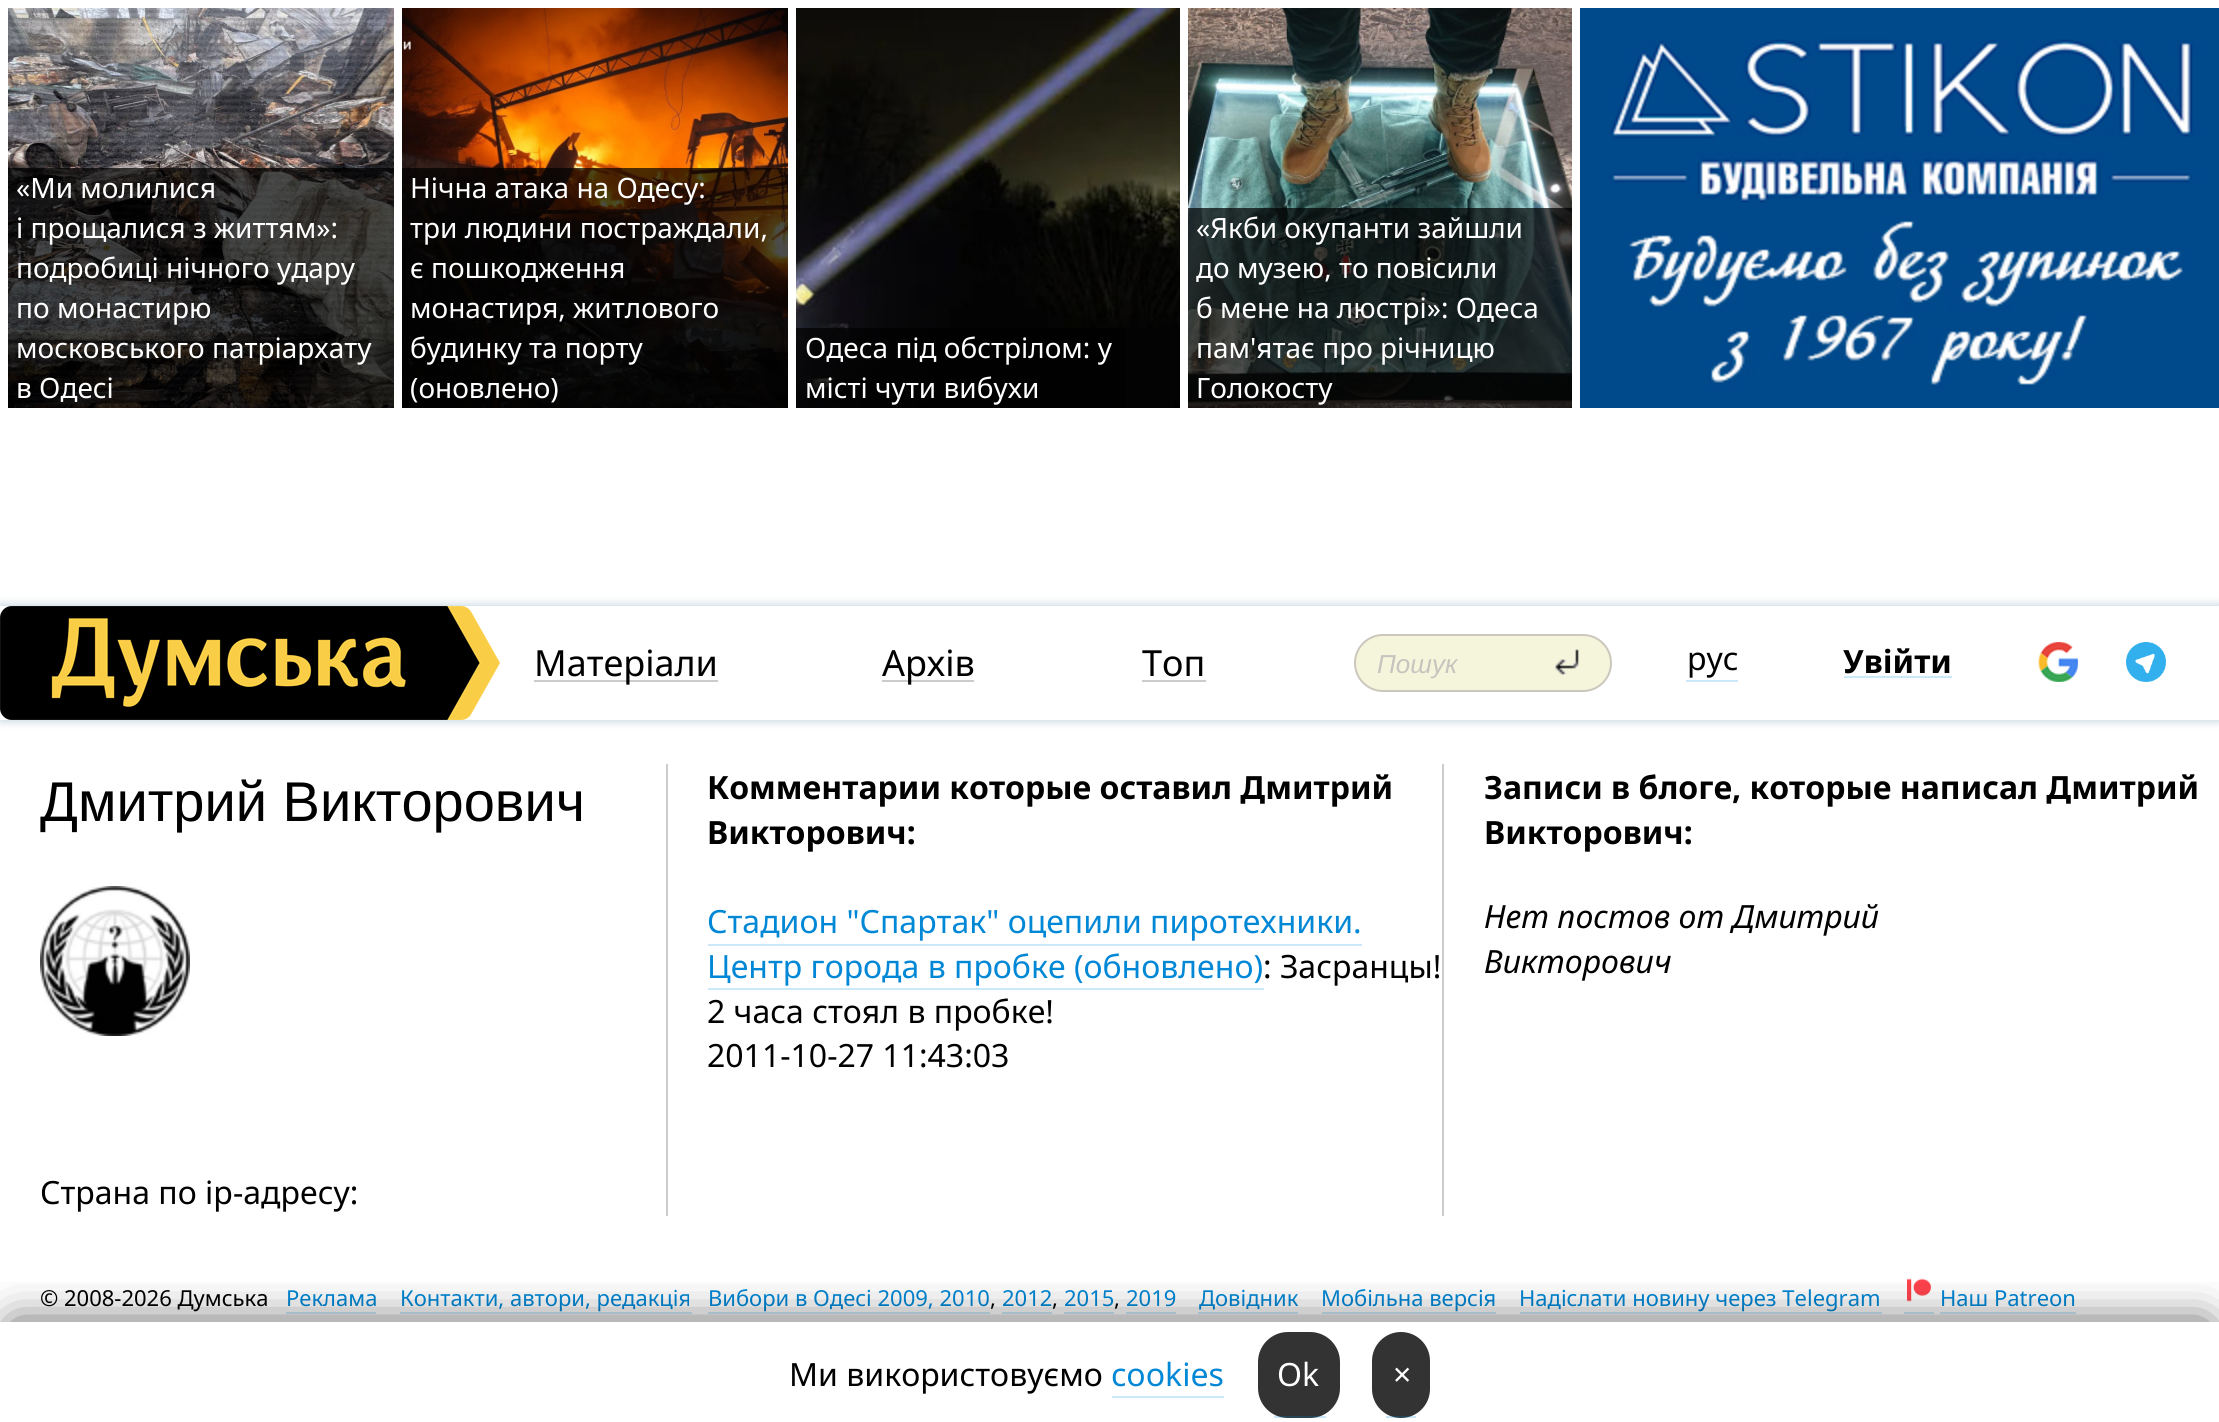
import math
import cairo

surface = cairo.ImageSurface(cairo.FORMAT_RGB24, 2219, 1422)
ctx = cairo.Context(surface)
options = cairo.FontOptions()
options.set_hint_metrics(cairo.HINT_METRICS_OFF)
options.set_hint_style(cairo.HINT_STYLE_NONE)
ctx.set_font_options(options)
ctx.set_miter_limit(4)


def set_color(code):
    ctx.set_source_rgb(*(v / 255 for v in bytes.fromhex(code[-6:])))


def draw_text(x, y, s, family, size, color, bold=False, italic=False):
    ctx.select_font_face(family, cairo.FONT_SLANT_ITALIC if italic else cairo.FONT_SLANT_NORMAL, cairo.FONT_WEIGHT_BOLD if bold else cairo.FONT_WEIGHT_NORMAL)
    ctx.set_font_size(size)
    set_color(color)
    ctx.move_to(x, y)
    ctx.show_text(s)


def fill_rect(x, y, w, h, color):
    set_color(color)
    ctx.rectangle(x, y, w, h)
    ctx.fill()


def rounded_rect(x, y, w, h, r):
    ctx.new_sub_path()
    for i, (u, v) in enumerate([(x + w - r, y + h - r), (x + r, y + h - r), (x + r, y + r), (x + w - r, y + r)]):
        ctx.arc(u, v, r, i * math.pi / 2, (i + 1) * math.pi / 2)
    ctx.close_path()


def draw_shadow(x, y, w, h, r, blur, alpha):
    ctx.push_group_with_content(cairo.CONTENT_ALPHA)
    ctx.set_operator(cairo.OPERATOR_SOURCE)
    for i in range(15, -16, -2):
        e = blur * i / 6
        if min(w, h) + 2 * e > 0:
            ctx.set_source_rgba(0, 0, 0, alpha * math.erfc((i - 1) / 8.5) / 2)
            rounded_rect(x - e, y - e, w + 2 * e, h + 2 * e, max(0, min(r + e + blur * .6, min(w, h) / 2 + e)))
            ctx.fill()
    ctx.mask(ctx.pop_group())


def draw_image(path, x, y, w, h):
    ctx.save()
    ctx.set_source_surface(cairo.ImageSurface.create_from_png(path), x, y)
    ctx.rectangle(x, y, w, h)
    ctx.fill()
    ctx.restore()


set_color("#ffffff")
ctx.paint()
draw_image("assets/img1.png", 8, 8, 386, 400)
ctx.set_source_rgba(0, 0, 0, 0.7)
ctx.rectangle(8, 168, 8, 240)
ctx.fill()
ctx.rectangle(386, 168, 8, 240)
ctx.fill()
ctx.rectangle(16, 168, 370, 240)
ctx.fill()
draw_text(16, 198, "«Ми молилися", "Noto Sans", 28, "#ffffff")
draw_text(16, 238, "і прощалися з життям»:", "Noto Sans", 28, "#ffffff")
draw_text(16, 278, "подробиці нічного удару", "Noto Sans", 28, "#ffffff")
draw_text(16, 318, "по монастирю", "Noto Sans", 28, "#ffffff")
draw_text(16, 358, "московського патріархату", "Noto Sans", 28, "#ffffff")
draw_text(16, 398, "в Одесі", "Noto Sans", 28, "#ffffff")
draw_image("assets/img2.png", 402, 8, 386, 400)
ctx.set_source_rgba(0, 0, 0, 0.7)
ctx.rectangle(402, 168, 8, 240)
ctx.fill()
ctx.rectangle(780, 168, 8, 240)
ctx.fill()
ctx.rectangle(410, 168, 370, 240)
ctx.fill()
draw_text(410, 198, "Нічна атака на Одесу:", "Noto Sans", 28, "#ffffff")
draw_text(410, 238, "три людини постраждали,", "Noto Sans", 28, "#ffffff")
draw_text(410, 278, "є пошкодження", "Noto Sans", 28, "#ffffff")
draw_text(410, 318, "монастиря, житлового", "Noto Sans", 28, "#ffffff")
draw_text(410, 358, "будинку та порту", "Noto Sans", 28, "#ffffff")
draw_text(410, 398, "(оновлено)", "Noto Sans", 28, "#ffffff")
draw_image("assets/img3.png", 796, 8, 384, 400)
ctx.set_source_rgba(0, 0, 0, 0.7)
ctx.rectangle(796, 328, 8, 80)
ctx.fill()
ctx.rectangle(1173, 402, 7, 6)
ctx.fill()
ctx.rectangle(804, 328, 321, 80)
ctx.fill()
draw_text(805, 358, "Одеса під обстрілом: у", "Noto Sans", 28, "#ffffff")
draw_text(805, 398, "місті чути вибухи", "Noto Sans", 28, "#ffffff")
draw_image("assets/img4.png", 1188, 8, 384, 400)
ctx.set_source_rgba(0, 0, 0, 0.7)
ctx.rectangle(1188, 208, 8, 200)
ctx.fill()
ctx.rectangle(1564, 208, 8, 200)
ctx.fill()
ctx.rectangle(1196, 208, 368, 200)
ctx.fill()
draw_text(1196, 238, "«Якби окупанти зайшли", "Noto Sans", 28, "#ffffff")
draw_text(1196, 278, "до музею, то повісили", "Noto Sans", 28, "#ffffff")
draw_text(1196, 318, "б мене на люстрі»: Одеса", "Noto Sans", 28, "#ffffff")
draw_text(1196, 358, "пам'ятає про річницю", "Noto Sans", 28, "#ffffff")
draw_text(1196, 398, "Голокосту", "Noto Sans", 28, "#ffffff")
draw_image("assets/img5.png", 1580, 8, 639, 400)
ctx.save()
ctx.set_fill_rule(cairo.FILL_RULE_EVEN_ODD)
ctx.new_path()
ctx.move_to(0, 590)
ctx.line_to(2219, 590)
ctx.line_to(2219, 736)
ctx.line_to(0, 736)
ctx.close_path()
ctx.move_to(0, 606)
ctx.line_to(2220, 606)
ctx.line_to(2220, 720)
ctx.line_to(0, 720)
ctx.close_path()
ctx.clip()
set_color("#004f7a")
draw_shadow(0, 606, 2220, 114, 0, 5, 0.3)
ctx.restore()
draw_image("assets/img6.png", 0, 606, 500, 114)
fill_rect(534, 680, 184, 2, "#cccccc")
draw_text(534, 676, "Матеріали", "Noto Sans", 36, "#000000")
fill_rect(882, 680, 92, 2, "#cccccc")
draw_text(882, 676, "Архів", "Noto Sans", 36, "#000000")
fill_rect(1142, 680, 64, 2, "#cccccc")
draw_text(1142, 676, "Топ", "Noto Sans", 36, "#000000")
set_color("#f5f5dc")
rounded_rect(1355, 635, 256, 56, 28)
ctx.fill_preserve()
set_color("#ccc7bd")
ctx.stroke()
draw_text(1377, 673, "Пошук", "Liberation Sans", 26, "#c6c4be", italic=True)
draw_image("assets/img7.png", 1554, 649, 25, 26)
draw_text(1687, 670, "рус", "Noto Sans", 32, "#000000")
fill_rect(1686, 680, 52, 2, "#cce7f7")
fill_rect(1844, 676, 108, 2, "#cce7f7")
draw_text(1843, 673, "Увійти", "Noto Sans", 32, "#000000", bold=True)
draw_image("assets/img8.png", 2038, 642, 40, 40)
draw_image("assets/img9.png", 2126, 642, 40, 40)
fill_rect(666, 764, 2, 452, "#cccccc")
draw_text(40, 821, "Дмитрий Викторович", "Liberation Sans", 56, "#000000")
draw_image("assets/img10.png", 40, 886, 150, 150)
draw_text(40, 1204, "Страна по ip-адресу:", "Noto Sans", 32, "#000000")
fill_rect(1442, 764, 2, 452, "#cccccc")
draw_text(707, 799, "Комментарии которые оставил Дмитрий", "Noto Sans", 32, "#000000", bold=True)
draw_text(707, 844, "Викторович:", "Noto Sans", 32, "#000000", bold=True)
draw_text(707, 933, "Стадион \"Спартак\" оцепили пиротехники.", "Noto Sans", 32, "#0087d6")
fill_rect(708, 944, 654, 2, "#cce7f7")
draw_text(707, 978, "Центр города в пробке (обновлено)", "Noto Sans", 32, "#0087d6")
fill_rect(708, 988, 556, 2, "#cce7f7")
draw_text(1263, 978, ": Засранцы!", "Noto Sans", 32, "#000000")
draw_text(707, 1023, "2 часа стоял в пробке!", "Noto Sans", 32, "#000000")
draw_text(707, 1067, "2011-10-27 11:43:03", "Noto Sans", 32, "#000000")
draw_text(1484, 799, "Записи в блоге, которые написал Дмитрий", "Noto Sans", 32, "#000000", bold=True)
draw_text(1484, 844, "Викторович:", "Noto Sans", 32, "#000000", bold=True)
draw_text(1484, 928, "Нет постов от Дмитрий", "Noto Sans", 32, "#000000", italic=True)
draw_text(1484, 973, "Викторович", "Noto Sans", 32, "#000000", italic=True)
draw_text(40, 1306, "© 2008-2026 Думська", "Noto Sans", 22, "#000000")
draw_text(286, 1306, "Реклама", "Noto Sans", 22, "#0087d6")
fill_rect(286, 1312, 90, 2, "#cce7f7")
draw_text(400, 1306, "Контакти, автори, редакція", "Noto Sans", 22, "#0087d6")
fill_rect(400, 1312, 292, 2, "#cce7f7")
draw_text(708, 1306, "Вибори в Одесі 2009, 2010", "Noto Sans", 22, "#0087d6")
fill_rect(708, 1312, 282, 2, "#cce7f7")
draw_text(990, 1306, ",", "Noto Sans", 22, "#000000")
draw_text(1002, 1306, "2012", "Noto Sans", 22, "#0087d6")
fill_rect(1002, 1312, 50, 2, "#cce7f7")
draw_text(1052, 1306, ",", "Noto Sans", 22, "#000000")
draw_text(1064, 1306, "2015", "Noto Sans", 22, "#0087d6")
fill_rect(1064, 1312, 50, 2, "#cce7f7")
draw_text(1114, 1306, ",", "Noto Sans", 22, "#000000")
draw_text(1126, 1306, "2019", "Noto Sans", 22, "#0087d6")
fill_rect(1126, 1312, 50, 2, "#cce7f7")
draw_text(1199, 1306, "Довідник", "Noto Sans", 22, "#0087d6")
fill_rect(1198, 1312, 100, 2, "#cce7f7")
draw_text(1321, 1306, "Мобільна версія", "Noto Sans", 22, "#0087d6")
fill_rect(1322, 1312, 174, 2, "#cce7f7")
draw_text(1519, 1306, "Надіслати новину через Telegram", "Noto Sans", 22, "#0087d6")
fill_rect(1520, 1312, 362, 2, "#cce7f7")
draw_image("assets/img11.png", 1907, 1278, 24, 24)
draw_text(1940, 1306, "Наш Patreon", "Noto Sans", 22, "#0087d6")
fill_rect(1940, 1312, 136, 2, "#cce7f7")
fill_rect(1904, 1312, 30, 2, "#cce7f7")
ctx.save()
ctx.rectangle(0, 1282, 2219, 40)
ctx.clip()
set_color("#000000")
draw_shadow(14, 1326, 2192, 72, 0, 23, 0.75)
ctx.restore()
draw_text(789, 1386, "Ми використовуємо", "Noto Sans", 32, "#000000")
draw_text(1111, 1386, "cookies", "Noto Sans", 32, "#0087d6")
fill_rect(1112, 1396, 112, 2, "#cce7f7")
set_color("#333333")
rounded_rect(1258, 1332, 82, 86, 30)
ctx.fill()
draw_text(1277, 1386, "Ok", "Noto Sans", 32, "#ffffff")
ctx.set_source_rgba(0, 0.529, 0.839, 0.2)
ctx.rectangle(1274, 1416, 52, 2)
ctx.fill()
set_color("#333333")
rounded_rect(1372, 1332, 58, 86, 29)
ctx.fill()
draw_text(1393, 1386, "×", "Noto Sans", 32, "#ffffff")
ctx.set_source_rgba(0, 0.529, 0.839, 0.2)
ctx.rectangle(1386, 1416, 30, 2)
ctx.fill()
surface.write_to_png("output.png")
